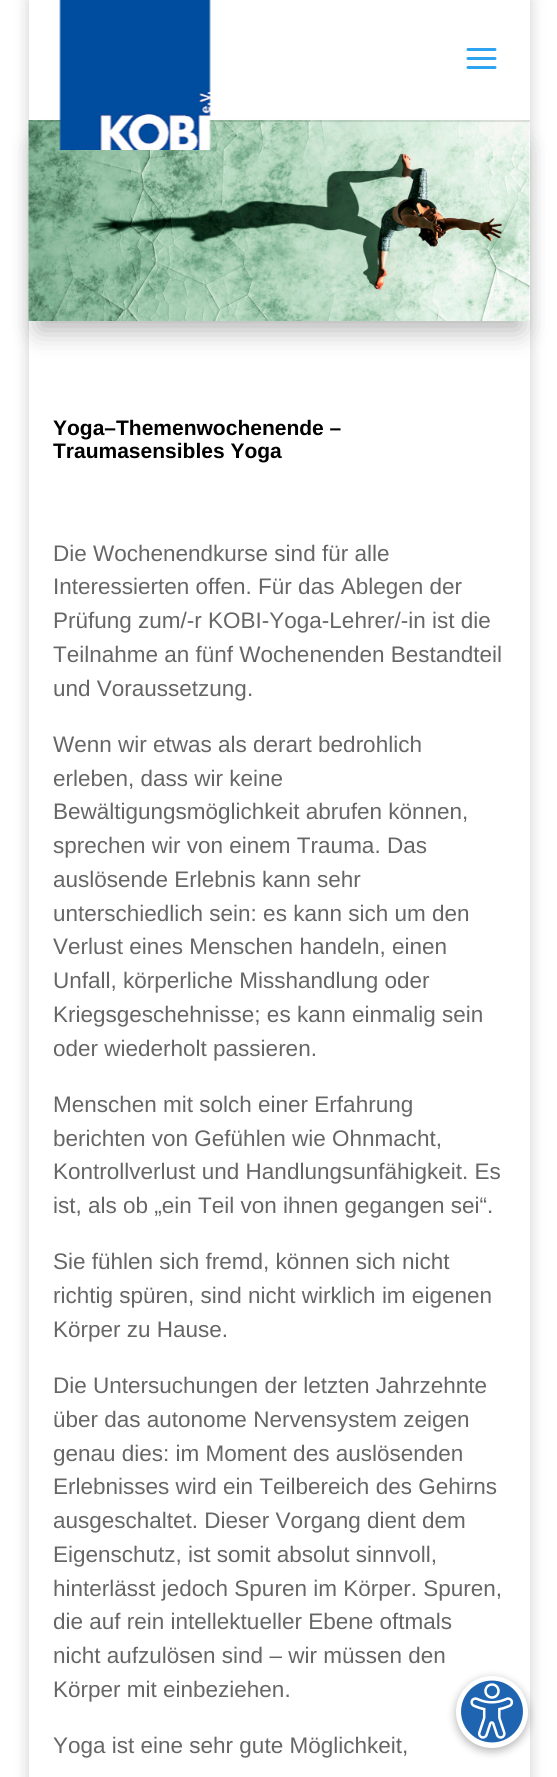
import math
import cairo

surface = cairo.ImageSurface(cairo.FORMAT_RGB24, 557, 1777)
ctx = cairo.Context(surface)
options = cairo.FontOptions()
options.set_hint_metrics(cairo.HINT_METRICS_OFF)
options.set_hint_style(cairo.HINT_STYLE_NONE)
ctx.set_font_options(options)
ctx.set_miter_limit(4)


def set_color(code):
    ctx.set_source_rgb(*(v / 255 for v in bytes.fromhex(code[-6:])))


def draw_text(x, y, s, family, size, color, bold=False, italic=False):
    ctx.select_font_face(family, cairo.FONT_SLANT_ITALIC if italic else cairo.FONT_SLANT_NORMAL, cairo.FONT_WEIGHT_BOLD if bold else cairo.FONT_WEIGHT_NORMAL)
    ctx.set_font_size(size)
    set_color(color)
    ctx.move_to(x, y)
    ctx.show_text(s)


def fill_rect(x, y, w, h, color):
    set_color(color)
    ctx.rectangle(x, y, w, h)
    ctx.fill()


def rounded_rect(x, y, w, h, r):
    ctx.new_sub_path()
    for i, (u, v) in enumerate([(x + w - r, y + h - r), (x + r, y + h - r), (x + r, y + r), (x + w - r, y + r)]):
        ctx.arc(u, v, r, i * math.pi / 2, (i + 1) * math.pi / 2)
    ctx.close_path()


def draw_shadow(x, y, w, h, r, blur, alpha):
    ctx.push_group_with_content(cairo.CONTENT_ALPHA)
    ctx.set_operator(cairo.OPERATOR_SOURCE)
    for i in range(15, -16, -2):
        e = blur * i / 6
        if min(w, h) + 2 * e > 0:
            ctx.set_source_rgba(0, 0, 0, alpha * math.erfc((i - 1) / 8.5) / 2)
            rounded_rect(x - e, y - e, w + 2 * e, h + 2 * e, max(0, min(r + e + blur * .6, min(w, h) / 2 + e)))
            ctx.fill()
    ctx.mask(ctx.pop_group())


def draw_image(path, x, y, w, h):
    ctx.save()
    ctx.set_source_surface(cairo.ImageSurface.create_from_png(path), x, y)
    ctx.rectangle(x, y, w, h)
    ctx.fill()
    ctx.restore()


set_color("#ffffff")
ctx.paint()
ctx.save()
ctx.set_fill_rule(cairo.FILL_RULE_EVEN_ODD)
ctx.new_path()
ctx.move_to(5, 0)
ctx.line_to(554, 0)
ctx.line_to(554, 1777)
ctx.line_to(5, 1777)
ctx.close_path()
ctx.move_to(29, 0)
ctx.line_to(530, 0)
ctx.line_to(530, 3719)
ctx.line_to(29, 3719)
ctx.close_path()
ctx.clip()
set_color("#000000")
draw_shadow(29, 0, 501, 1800, 0, 7.5, 0.2)
ctx.restore()
fill_rect(529, 344, 1, 1433, "#ffffff")
set_color("#000000")
draw_shadow(38, 147, 483, 183, 0, 13.5, 0.3)
fill_rect(529, 0, 1, 321, "#ffffff")
draw_image("assets/img3.png", 28, 120, 502, 201)
ctx.set_source_rgba(0, 0, 0, 0.1)
ctx.new_path()
ctx.move_to(29, 120)
ctx.line_to(29, 122)
ctx.line_to(530, 122)
ctx.line_to(530, 2)
ctx.line_to(530, 120)
ctx.close_path()
ctx.fill()
draw_image("assets/img1.png", 59, 0, 152, 150)
draw_image("assets/img2.png", 466, 48, 31, 21)
draw_text(53, 435, "Yoga–Themenwochenende –", "Liberation Sans", 21, "#000000", bold=True)
draw_text(53, 458, "Traumasensibles Yoga", "Liberation Sans", 21, "#000000", bold=True)
draw_text(53, 561, "Die Wochenendkurse sind für alle", "Liberation Sans", 22.5, "#666666")
draw_text(53, 594, "Interessierten offen. Für das Ablegen der", "Liberation Sans", 22.5, "#666666")
draw_text(53, 628, "Prüfung zum/-r KOBI-Yoga-Lehrer/-in ist die", "Liberation Sans", 22.5, "#666666")
draw_text(53, 662, "Teilnahme an fünf Wochenenden Bestandteil", "Liberation Sans", 22.5, "#666666")
draw_text(53, 696, "und Voraussetzung.", "Liberation Sans", 22.5, "#666666")
draw_text(53, 752, "Wenn wir etwas als derart bedrohlich", "Liberation Sans", 22.5, "#666666")
draw_text(53, 786, "erleben, dass wir keine", "Liberation Sans", 22.5, "#666666")
draw_text(53, 819, "Bewältigungsmöglichkeit abrufen können,", "Liberation Sans", 22.5, "#666666")
draw_text(53, 853, "sprechen wir von einem Trauma. Das", "Liberation Sans", 22.5, "#666666")
draw_text(53, 887, "auslösende Erlebnis kann sehr", "Liberation Sans", 22.5, "#666666")
draw_text(53, 921, "unterschiedlich sein: es kann sich um den", "Liberation Sans", 22.5, "#666666")
draw_text(53, 954, "Verlust eines Menschen handeln, einen", "Liberation Sans", 22.5, "#666666")
draw_text(53, 988, "Unfall, körperliche Misshandlung oder", "Liberation Sans", 22.5, "#666666")
draw_text(53, 1022, "Kriegsgeschehnisse; es kann einmalig sein", "Liberation Sans", 22.5, "#666666")
draw_text(53, 1056, "oder wiederholt passieren.", "Liberation Sans", 22.5, "#666666")
draw_text(53, 1112, "Menschen mit solch einer Erfahrung", "Liberation Sans", 22.5, "#666666")
draw_text(53, 1146, "berichten von Gefühlen wie Ohnmacht,", "Liberation Sans", 22.5, "#666666")
draw_text(53, 1179, "Kontrollverlust und Handlungsunfähigkeit. Es", "Liberation Sans", 22.5, "#666666")
draw_text(53, 1213, "ist, als ob „ein Teil von ihnen gegangen sei“.", "Liberation Sans", 22.5, "#666666")
draw_text(53, 1269, "Sie fühlen sich fremd, können sich nicht", "Liberation Sans", 22.5, "#666666")
draw_text(53, 1303, "richtig spüren, sind nicht wirklich im eigenen", "Liberation Sans", 22.5, "#666666")
draw_text(53, 1337, "Körper zu Hause.", "Liberation Sans", 22.5, "#666666")
draw_text(53, 1393, "Die Untersuchungen der letzten Jahrzehnte", "Liberation Sans", 22.5, "#666666")
draw_text(53, 1427, "über das autonome Nervensystem zeigen", "Liberation Sans", 22.5, "#666666")
draw_text(53, 1461, "genau dies: im Moment des auslösenden", "Liberation Sans", 22.5, "#666666")
draw_text(53, 1494, "Erlebnisses wird ein Teilbereich des Gehirns", "Liberation Sans", 22.5, "#666666")
draw_text(53, 1528, "ausgeschaltet. Dieser Vorgang dient dem", "Liberation Sans", 22.5, "#666666")
draw_text(53, 1562, "Eigenschutz, ist somit absolut sinnvoll,", "Liberation Sans", 22.5, "#666666")
draw_text(53, 1596, "hinterlässt jedoch Spuren im Körper. Spuren,", "Liberation Sans", 22.5, "#666666")
draw_text(53, 1629, "die auf rein intellektueller Ebene oftmals", "Liberation Sans", 22.5, "#666666")
draw_text(53, 1663, "nicht aufzulösen sind – wir müssen den", "Liberation Sans", 22.5, "#666666")
draw_text(53, 1697, "Körper mit einbeziehen.", "Liberation Sans", 22.5, "#666666")
draw_text(53, 1753, "Yoga ist eine sehr gute Möglichkeit,", "Liberation Sans", 22.5, "#666666")
set_color("#000000")
draw_shadow(456, 1679, 72, 72, 36, 4.5, 0.3)
ctx.arc(492, 1712, 34.5, 0, 2 * math.pi)
set_color("#ffffff")
ctx.set_line_width(3)
ctx.stroke()
draw_image("assets/img4.png", 459, 1679, 66, 66)
surface.write_to_png("output.png")
